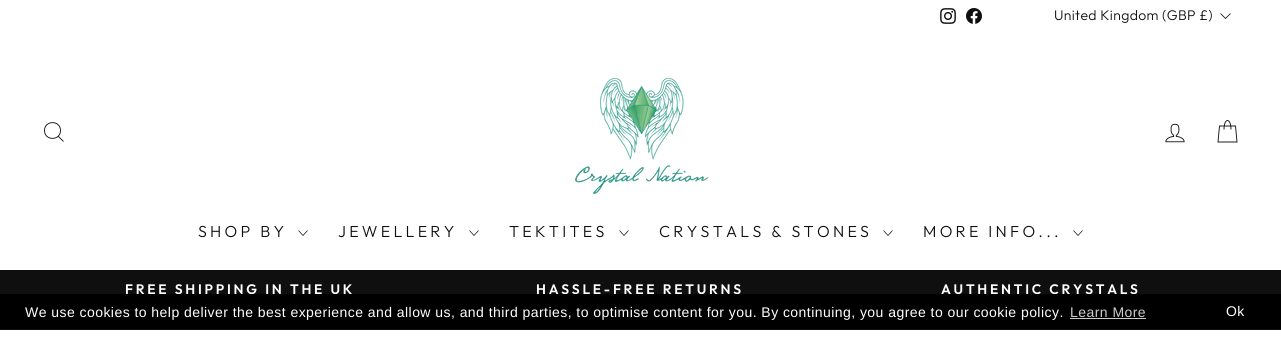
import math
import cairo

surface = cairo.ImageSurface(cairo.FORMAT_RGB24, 1281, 343)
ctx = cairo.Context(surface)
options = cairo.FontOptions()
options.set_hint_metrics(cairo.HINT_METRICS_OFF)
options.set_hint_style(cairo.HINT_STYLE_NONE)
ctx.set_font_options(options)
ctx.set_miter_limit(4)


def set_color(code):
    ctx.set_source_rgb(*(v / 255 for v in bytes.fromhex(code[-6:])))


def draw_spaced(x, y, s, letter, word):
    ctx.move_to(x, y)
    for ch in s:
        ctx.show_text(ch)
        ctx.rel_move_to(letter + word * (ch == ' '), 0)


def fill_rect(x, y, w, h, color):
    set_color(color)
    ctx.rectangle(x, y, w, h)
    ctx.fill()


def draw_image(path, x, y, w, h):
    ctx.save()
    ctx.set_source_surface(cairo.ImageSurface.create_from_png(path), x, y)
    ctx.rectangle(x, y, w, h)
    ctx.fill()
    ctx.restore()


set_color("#ffffff")
ctx.paint()
draw_image("assets/img1.png", 940, 8, 16, 16)
draw_image("assets/img2.png", 966, 8, 16, 16)
ctx.select_font_face("Outfit Light")
ctx.set_font_size(14)
set_color("#0f0f0f")
draw_spaced(1054, 20, "United Kingdom (GBP £)", 0.35, 0)
ctx.new_path()
ctx.move_to(1220.5, 13.5)
ctx.line_to(1225.5, 18.5)
ctx.line_to(1230.5, 13.5)
ctx.set_line_width(0.8)
ctx.stroke()
ctx.new_path()
ctx.move_to(60.5, 130.5)
ctx.curve_to(60.5, 141, 44.5, 141, 44.5, 130.5)
ctx.curve_to(44.5, 120, 60.5, 120, 60.5, 130.5)
ctx.close_path()
ctx.move_to(63.5, 141.5)
ctx.line_to(58.5, 136.5)
ctx.set_line_width(0.9)
ctx.stroke()
draw_image("assets/img3.png", 575, 77, 134, 117)
draw_image("assets/img4.png", 1165, 123, 20, 20)
ctx.new_path()
ctx.move_to(1224, 129.5)
ctx.curve_to(1224, 117.5, 1231, 117.5, 1231, 129.5)
ctx.move_to(1219.5, 126)
ctx.line_to(1235.5, 126)
ctx.line_to(1237, 142)
ctx.line_to(1218, 142)
ctx.close_path()
ctx.stroke()
ctx.set_font_size(16)
draw_spaced(198, 237, "SHOP BY", 3.25, 0)
ctx.new_path()
ctx.move_to(298.5, 230.5)
ctx.line_to(303, 235.5)
ctx.line_to(307.5, 230.5)
ctx.set_line_width(0.7)
ctx.stroke()
draw_spaced(338, 237, "JEWELLERY", 3.25, 0)
ctx.new_path()
ctx.move_to(469.5, 230.5)
ctx.line_to(474, 235.5)
ctx.line_to(478.5, 230.5)
ctx.stroke()
draw_spaced(509, 237, "TEKTITES", 3.25, 0)
ctx.new_path()
ctx.move_to(619.5, 230.5)
ctx.line_to(624, 235.5)
ctx.line_to(628.5, 230.5)
ctx.stroke()
draw_spaced(659, 237, "CRYSTALS & STONES", 3.25, 0)
ctx.new_path()
ctx.move_to(883.5, 230.5)
ctx.line_to(888, 235.5)
ctx.line_to(892.5, 230.5)
ctx.stroke()
draw_spaced(923, 237, "MORE INFO...", 3.25, 0)
ctx.new_path()
ctx.move_to(1073.5, 230.5)
ctx.line_to(1078, 235.5)
ctx.line_to(1082.5, 230.5)
ctx.stroke()
fill_rect(0, 270, 1281, 60, "#0f0f0f")
ctx.select_font_face("Outfit SemiBold")
ctx.set_font_size(13.75)
set_color("#ffffff")
draw_spaced(125, 294, "FREE SHIPPING IN THE UK", 2.75, 0)
draw_spaced(536, 294, "HASSLE-FREE RETURNS", 2.75, 0)
draw_spaced(941, 294, "AUTHENTIC CRYSTALS", 2.75, 0)
fill_rect(0, 294, 1281, 35, "#000000")
ctx.select_font_face("Liberation Sans")
ctx.set_font_size(14)
set_color("#ffffff")
draw_spaced(25, 317, "We use cookies to help deliver the best experience and allow us, and third parties, to optimise content for you. By continuing, you agree to our cookie policy.", 0.45, 0)
set_color("#cccccc")
draw_spaced(1070, 317, "Learn More", 0.45, 0)
fill_rect(1070, 318, 76, 1, "#cccccc")
set_color("#ffffff")
draw_spaced(1226, 316, "Ok", 0.45, 0)
surface.write_to_png("output.png")
